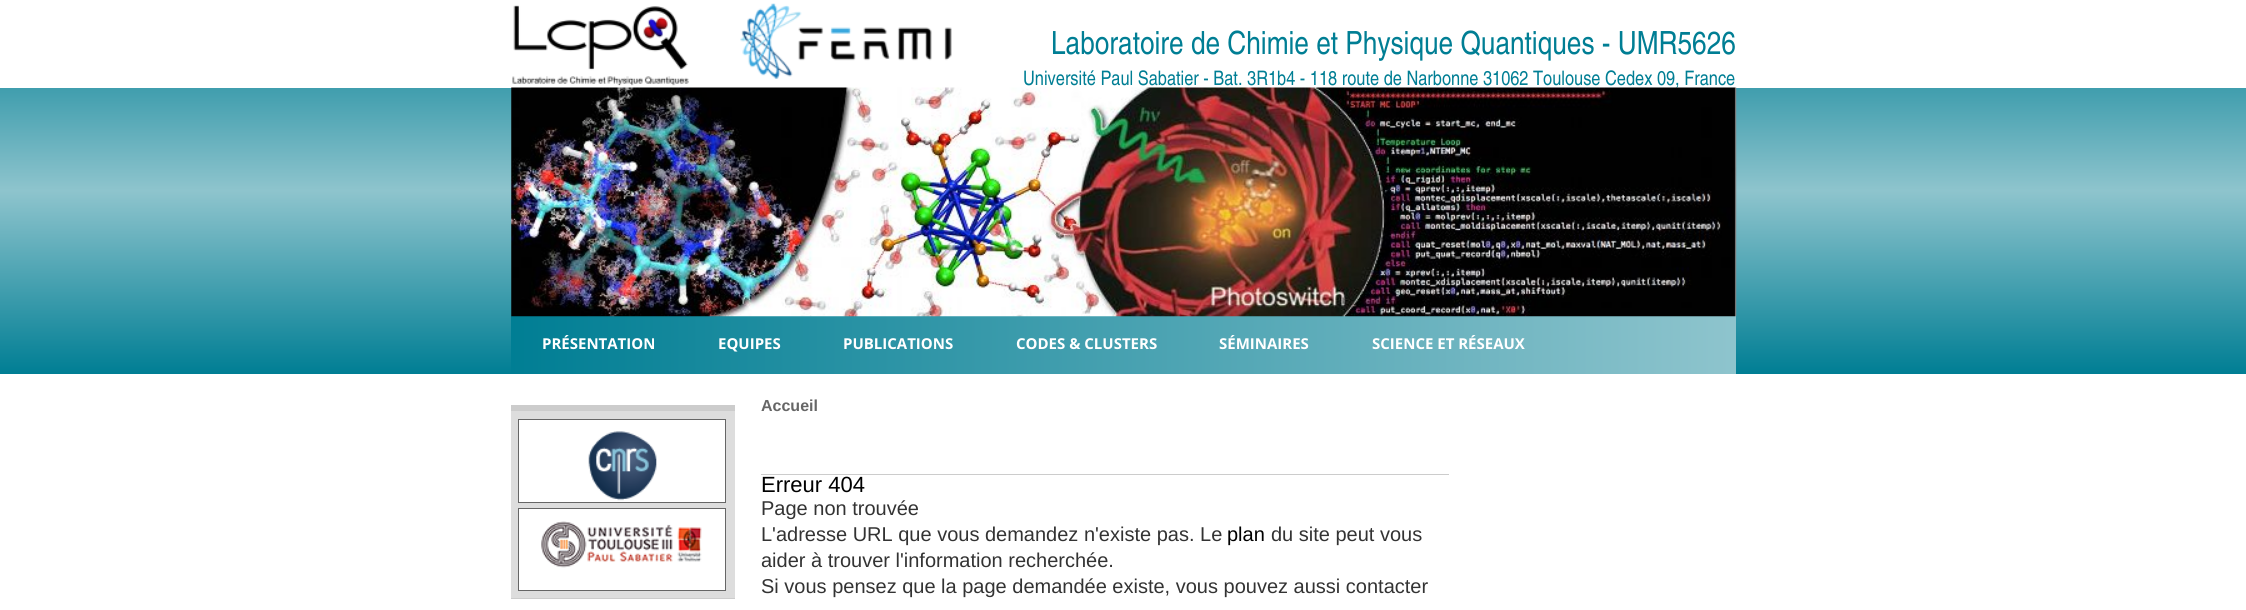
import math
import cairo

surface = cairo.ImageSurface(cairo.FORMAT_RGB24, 2246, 610)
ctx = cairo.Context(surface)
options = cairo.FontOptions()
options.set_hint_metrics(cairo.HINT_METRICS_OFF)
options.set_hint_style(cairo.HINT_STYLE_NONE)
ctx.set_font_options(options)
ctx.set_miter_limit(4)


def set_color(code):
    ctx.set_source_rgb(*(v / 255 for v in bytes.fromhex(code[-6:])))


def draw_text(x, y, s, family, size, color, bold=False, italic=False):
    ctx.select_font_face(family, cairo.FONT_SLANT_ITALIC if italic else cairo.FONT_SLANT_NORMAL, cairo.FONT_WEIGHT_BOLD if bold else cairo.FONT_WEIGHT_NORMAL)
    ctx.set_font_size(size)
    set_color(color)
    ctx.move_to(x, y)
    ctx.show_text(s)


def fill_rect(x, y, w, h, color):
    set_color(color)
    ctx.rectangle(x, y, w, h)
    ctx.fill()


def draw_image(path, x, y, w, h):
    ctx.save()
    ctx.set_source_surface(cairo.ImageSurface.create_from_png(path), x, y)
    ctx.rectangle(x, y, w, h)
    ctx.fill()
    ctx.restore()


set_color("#ffffff")
ctx.paint()
gradient = cairo.LinearGradient(1123, 0, 1123, 374)
gradient.add_color_stop_rgba(0.01, 0, 0.494, 0.58, 1)
gradient.add_color_stop_rgba(0.51, 0.557, 0.769, 0.804, 1)
gradient.add_color_stop_rgba(1, 0, 0.494, 0.58, 1)
ctx.set_source(gradient)
ctx.rectangle(0, 88, 2246, 286)
ctx.fill()
draw_image("assets/img1.png", 512, 5, 177, 81)
draw_image("assets/img2.png", 740, 3, 212, 76)
draw_text(1051, 54, "Laboratoire de Chimie et Physique Quantiques - UMR5626", "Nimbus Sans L", 32, "#007e94")
draw_text(1023, 85, "Université Paul Sabatier - Bat. 3R1b4 - 118 route de Narbonne 31062 Toulouse Cedex 09, France", "Nimbus Sans L", 20, "#007e94")
gradient = cairo.LinearGradient(511, 345, 1736, 345)
gradient.add_color_stop_rgba(0, 0, 0.494, 0.58, 1)
gradient.add_color_stop_rgba(1, 0.557, 0.769, 0.804, 1)
ctx.set_source(gradient)
ctx.rectangle(511, 316, 1225, 58)
ctx.fill()
draw_image("assets/img3.png", 511, 87, 1226, 230)
draw_text(542, 349, "PRÉSENTATION", "Open Sans", 15, "#ffffff", bold=True)
draw_text(718, 349, "EQUIPES", "Open Sans", 15, "#ffffff", bold=True)
draw_text(843, 349, "PUBLICATIONS", "Open Sans", 15, "#ffffff", bold=True)
draw_text(1016, 349, "CODES & CLUSTERS", "Open Sans", 15, "#ffffff", bold=True)
draw_text(1219, 349, "SÉMINAIRES", "Open Sans", 15, "#ffffff", bold=True)
draw_text(1372, 349, "SCIENCE ET RÉSEAUX", "Open Sans", 15, "#ffffff", bold=True)
fill_rect(511, 411, 224, 187, "#dddddd")
fill_rect(511, 405, 224, 6, "#cccccc")
fill_rect(511, 598, 224, 1, "#cccccc")
set_color("#ffffff")
ctx.rectangle(518.5, 419.5, 207, 83)
ctx.fill_preserve()
set_color("#666666")
ctx.set_line_width(1)
ctx.stroke()
draw_image("assets/img4.png", 588, 431, 69, 70)
set_color("#ffffff")
ctx.rectangle(518.5, 508.5, 207, 82)
ctx.fill_preserve()
set_color("#666666")
ctx.stroke()
draw_image("assets/img5.png", 541, 521, 161, 47)
draw_text(761, 411, "Accueil", "Liberation Sans", 16, "#666666", bold=True)
fill_rect(761, 474, 688, 1, "#cccccc")
draw_text(761, 492, "Erreur 404", "Liberation Sans", 22, "#000000")
draw_text(761, 515, "Page non trouvée", "Liberation Sans", 20, "#333333")
draw_text(761, 541, "L'adresse URL que vous demandez n'existe pas. Le", "Liberation Sans", 20, "#333333")
draw_text(1227, 541, "plan", "Liberation Sans", 20, "#000000")
draw_text(1271, 541, "du site peut vous", "Liberation Sans", 20, "#333333")
draw_text(761, 567, "aider à trouver l'information recherchée.", "Liberation Sans", 20, "#333333")
draw_text(761, 593, "Si vous pensez que la page demandée existe, vous pouvez aussi contacter", "Liberation Sans", 20, "#333333")
surface.write_to_png("output.png")
